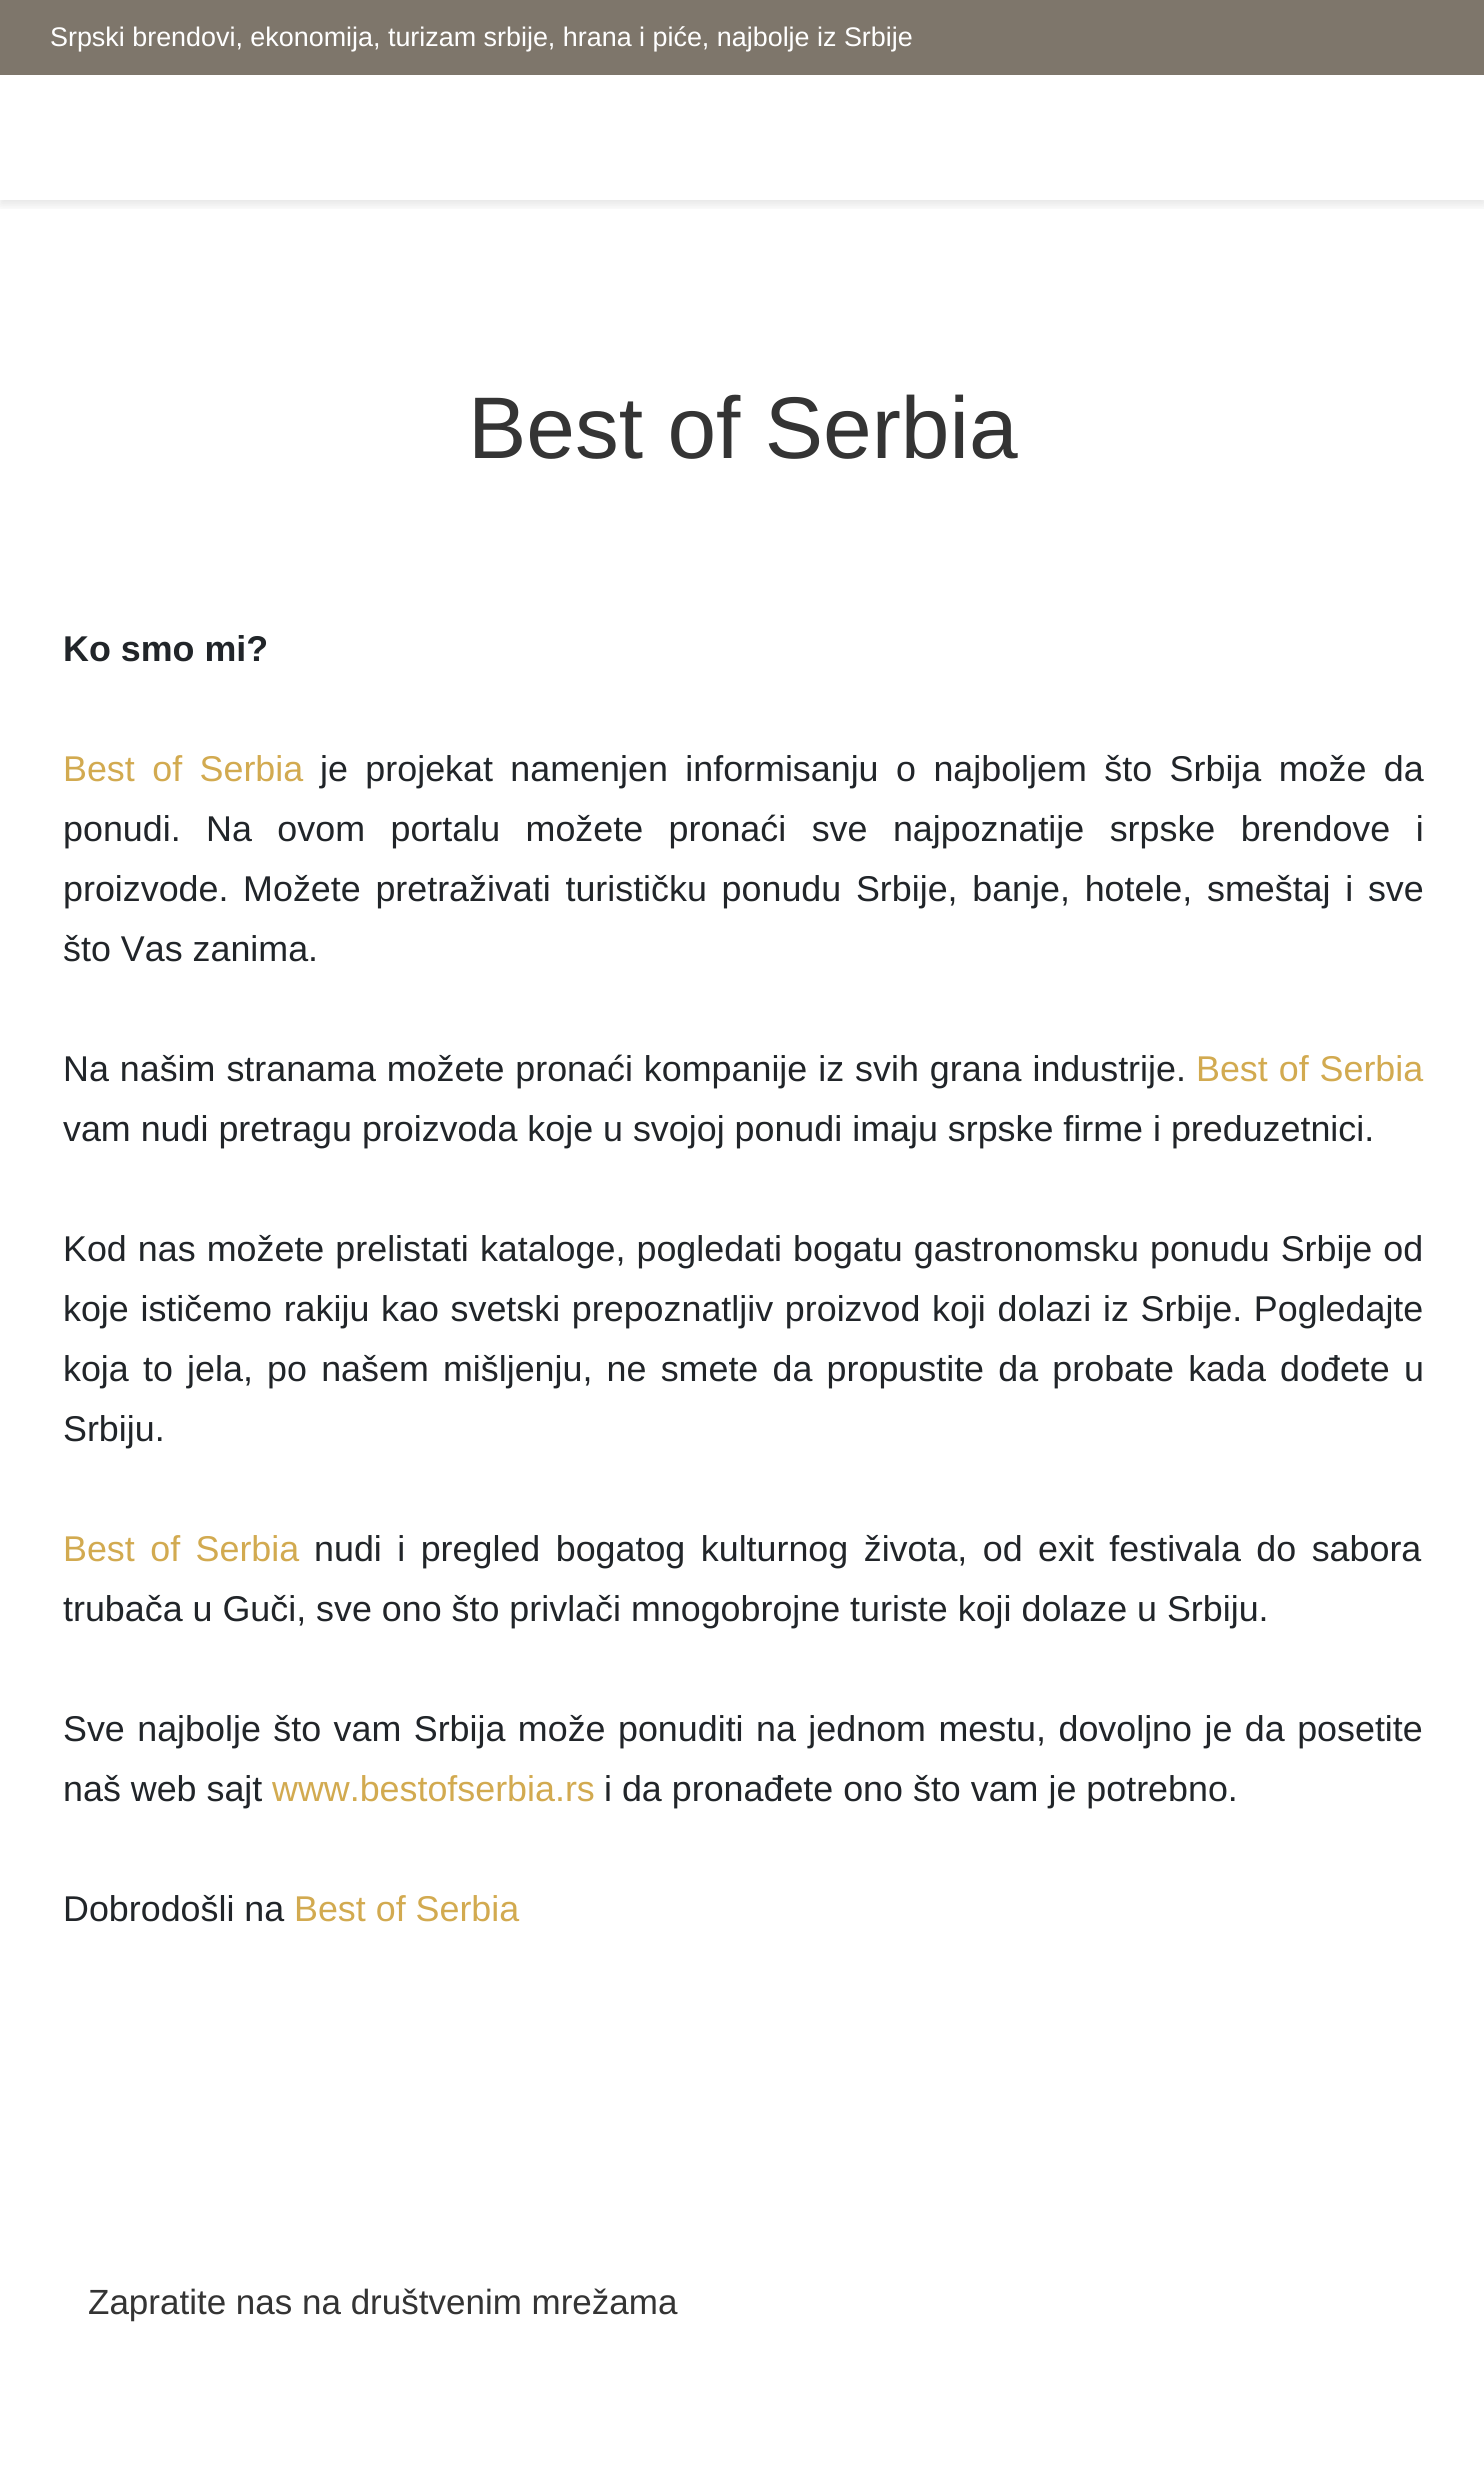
import math
import cairo

surface = cairo.ImageSurface(cairo.FORMAT_RGB24, 1484, 2488)
ctx = cairo.Context(surface)
options = cairo.FontOptions()
options.set_hint_metrics(cairo.HINT_METRICS_OFF)
options.set_hint_style(cairo.HINT_STYLE_NONE)
ctx.set_font_options(options)
ctx.set_miter_limit(4)


def set_color(code):
    ctx.set_source_rgb(*(v / 255 for v in bytes.fromhex(code[-6:])))


def draw_text(x, y, s, family, size, color, bold=False, italic=False):
    ctx.select_font_face(family, cairo.FONT_SLANT_ITALIC if italic else cairo.FONT_SLANT_NORMAL, cairo.FONT_WEIGHT_BOLD if bold else cairo.FONT_WEIGHT_NORMAL)
    ctx.set_font_size(size)
    set_color(color)
    ctx.move_to(x, y)
    ctx.show_text(s)


def draw_spaced(x, y, s, letter, word):
    ctx.move_to(x, y)
    for ch in s:
        ctx.show_text(ch)
        ctx.rel_move_to(letter + word * (ch == ' '), 0)


def fill_rect(x, y, w, h, color):
    set_color(color)
    ctx.rectangle(x, y, w, h)
    ctx.fill()


def rounded_rect(x, y, w, h, r):
    ctx.new_sub_path()
    for i, (u, v) in enumerate([(x + w - r, y + h - r), (x + r, y + h - r), (x + r, y + r), (x + w - r, y + r)]):
        ctx.arc(u, v, r, i * math.pi / 2, (i + 1) * math.pi / 2)
    ctx.close_path()


def draw_shadow(x, y, w, h, r, blur, alpha):
    ctx.push_group_with_content(cairo.CONTENT_ALPHA)
    ctx.set_operator(cairo.OPERATOR_SOURCE)
    for i in range(15, -16, -2):
        e = blur * i / 6
        if min(w, h) + 2 * e > 0:
            ctx.set_source_rgba(0, 0, 0, alpha * math.erfc((i - 1) / 8.5) / 2)
            rounded_rect(x - e, y - e, w + 2 * e, h + 2 * e, max(0, min(r + e + blur * .6, min(w, h) / 2 + e)))
            ctx.fill()
    ctx.mask(ctx.pop_group())


set_color("#ffffff")
ctx.paint()
fill_rect(0, 0, 1484, 75, "#7e766b")
draw_text(50, 46, "Srpski brendovi, ekonomija, turizam srbije, hrana i piće, najbolje iz Srbije", "Liberation Sans", 26.9, "#ffffff")
ctx.save()
ctx.rectangle(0, 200, 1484, 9)
ctx.clip()
set_color("#000000")
draw_shadow(0, 80, 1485, 125, 0, 5, 0.1)
ctx.restore()
draw_text(468, 458, "Best of Serbia", "Liberation Sans", 87.5, "#343434")
draw_text(63, 661, "Ko smo mi?", "Liberation Sans", 35.85, "#212529", bold=True)
ctx.select_font_face("Liberation Sans")
set_color("#d2aa50")
draw_spaced(63, 781, "Best of Serbia", 0, 7.5)
set_color("#212529")
draw_spaced(320, 781, "je projekat namenjen informisanju o najboljem što Srbija može da", 0, 7.5)
draw_spaced(63, 841, "ponudi. Na ovom portalu možete pronaći sve najpoznatije srpske brendove i", 0, 15.5)
draw_spaced(63, 901, "proizvode. Možete pretraživati turističku ponudu Srbije, banje, hotele, smeštaj i sve", 0, 4.75)
draw_text(63, 961, "što Vas zanima.", "Liberation Sans", 35.85, "#212529")
draw_spaced(63, 1081, "Na našim stranama možete pronaći kompanije iz svih grana industrije.", 0, 1)
set_color("#d2aa50")
draw_spaced(1196, 1081, "Best of Serbia", 0, 1)
draw_text(63, 1141, "vam nudi pretragu proizvoda koje u svojoj ponudi imaju srpske firme i preduzetnici.", "Liberation Sans", 35.85, "#212529")
draw_spaced(63, 1261, "Kod nas možete prelistati kataloge, pogledati bogatu gastronomsku ponudu Srbije od", 0, 1.1)
draw_spaced(63, 1321, "koje ističemo rakiju kao svetski prepoznatljiv proizvod koji dolazi iz Srbije. Pogledajte", 0, 1.75)
draw_spaced(63, 1381, "koja to jela, po našem mišljenju, ne smete da propustite da probate kada dođete u", 0, 4.25)
draw_text(63, 1441, "Srbiju.", "Liberation Sans", 35.85, "#212529")
set_color("#d2aa50")
draw_spaced(63, 1561, "Best of Serbia", 0, 5.5)
set_color("#212529")
draw_spaced(314, 1561, "nudi i pregled bogatog kulturnog života, od exit festivala do sabora", 0, 5.5)
draw_text(63, 1621, "trubača u Guči, sve ono što privlači mnogobrojne turiste koji dolaze u Srbiju.", "Liberation Sans", 35.85, "#212529")
draw_spaced(63, 1741, "Sve najbolje što vam Srbija može ponuditi na jednom mestu, dovoljno je da posetite", 0, 2.5)
draw_text(63, 1801, "naš web sajt", "Liberation Sans", 35.85, "#212529")
draw_text(272, 1801, "www.bestofserbia.rs", "Liberation Sans", 35.85, "#d2aa50")
draw_text(604, 1801, "i da pronađete ono što vam je potrebno.", "Liberation Sans", 35.85, "#212529")
draw_text(63, 1921, "Dobrodošli na", "Liberation Sans", 35.85, "#212529")
draw_text(294, 1921, "Best of Serbia", "Liberation Sans", 35.85, "#d2aa50")
draw_text(88, 2314, "Zapratite nas na društvenim mrežama", "Liberation Sans", 35, "#343434")
surface.write_to_png("output.png")
